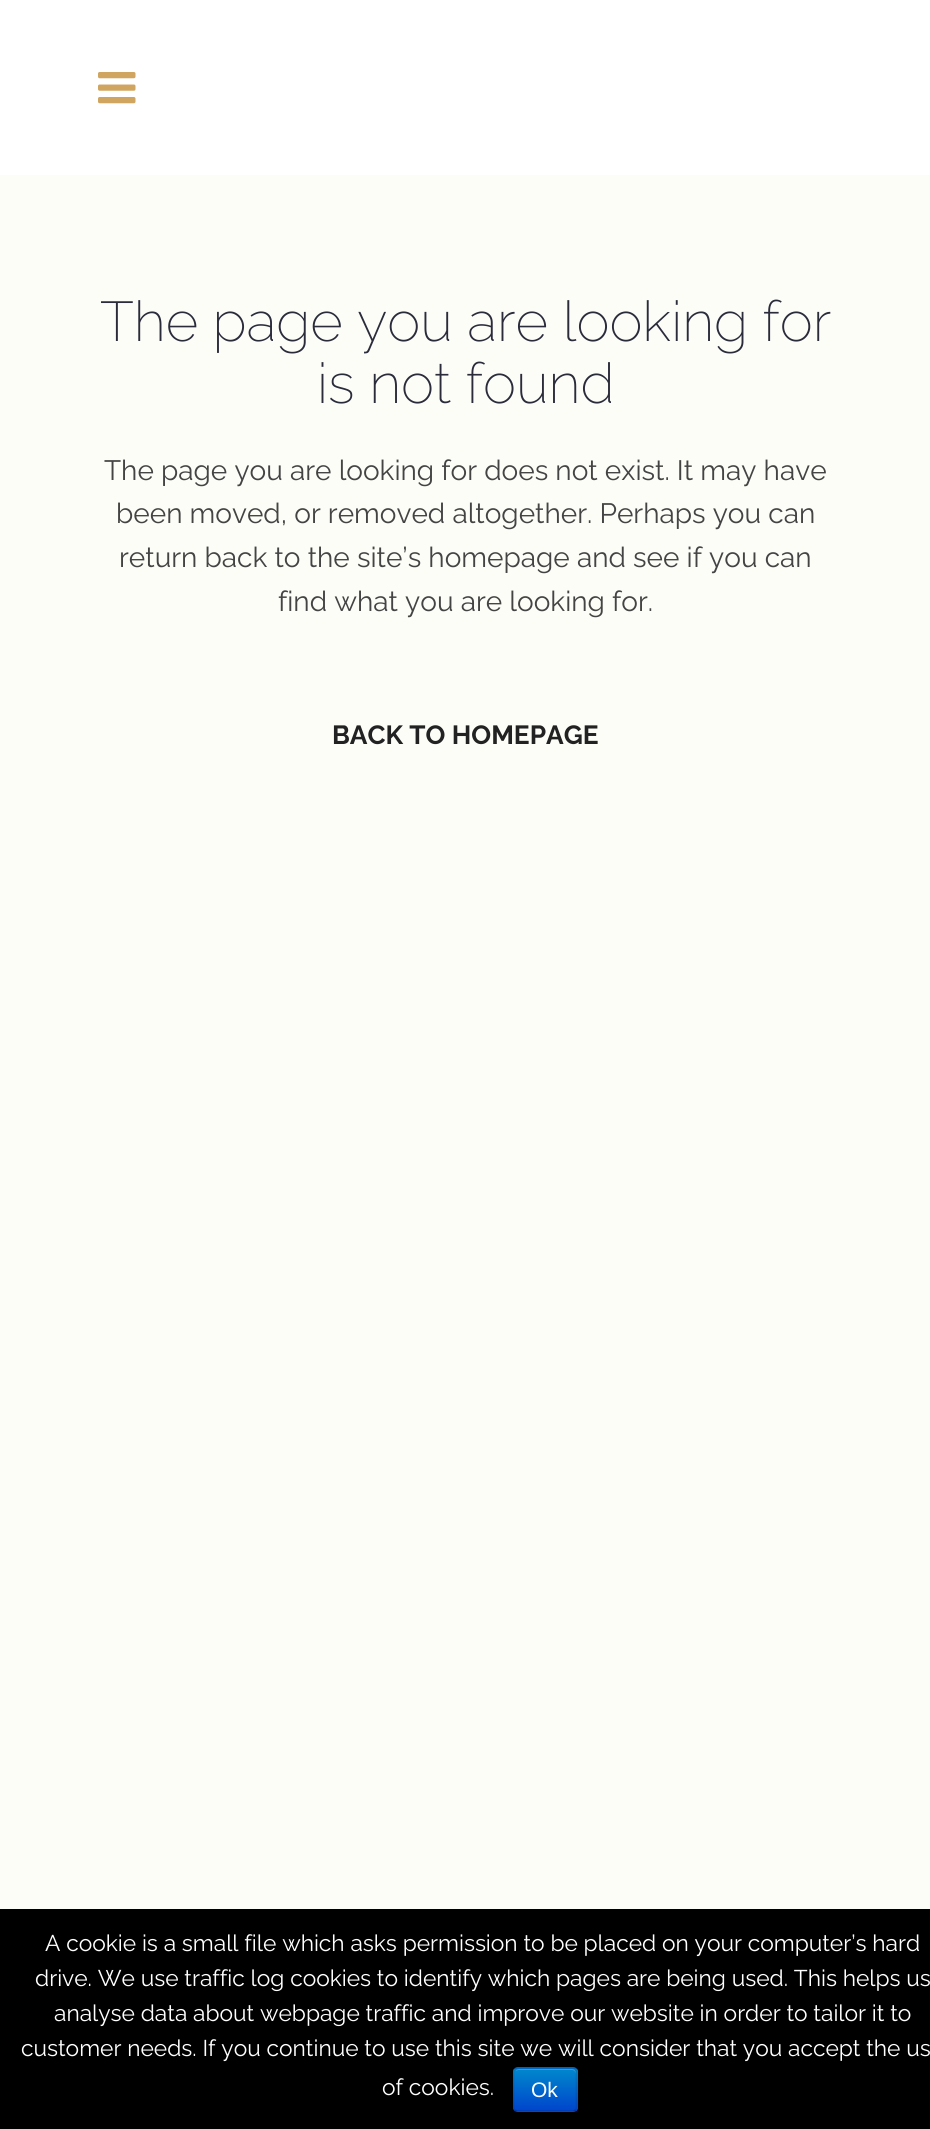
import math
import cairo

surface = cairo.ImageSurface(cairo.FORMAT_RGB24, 930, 2129)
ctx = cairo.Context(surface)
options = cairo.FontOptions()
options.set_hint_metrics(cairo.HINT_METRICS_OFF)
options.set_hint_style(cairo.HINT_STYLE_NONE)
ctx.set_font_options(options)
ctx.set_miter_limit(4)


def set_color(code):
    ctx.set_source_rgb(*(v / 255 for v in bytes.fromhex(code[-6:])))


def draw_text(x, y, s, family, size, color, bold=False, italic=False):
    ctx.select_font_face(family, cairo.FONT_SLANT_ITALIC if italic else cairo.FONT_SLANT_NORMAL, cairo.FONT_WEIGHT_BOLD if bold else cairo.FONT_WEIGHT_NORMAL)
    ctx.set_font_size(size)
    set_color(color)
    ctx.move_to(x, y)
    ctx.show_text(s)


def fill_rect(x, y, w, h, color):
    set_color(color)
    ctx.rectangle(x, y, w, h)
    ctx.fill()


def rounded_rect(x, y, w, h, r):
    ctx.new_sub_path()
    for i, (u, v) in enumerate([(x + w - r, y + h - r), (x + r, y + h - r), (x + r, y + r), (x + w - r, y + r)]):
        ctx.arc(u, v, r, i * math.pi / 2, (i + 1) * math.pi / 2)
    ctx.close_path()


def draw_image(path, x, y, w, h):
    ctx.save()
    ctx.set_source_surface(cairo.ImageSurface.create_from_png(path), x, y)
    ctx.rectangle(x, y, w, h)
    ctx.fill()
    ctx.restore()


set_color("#fdfdf8")
ctx.paint()
fill_rect(0, 0, 930, 175, "#ffffff")
draw_image("assets/img1.png", 98, 72, 38, 32)
draw_text(100, 341, "The page you are looking for", "Raleway ExtraLight", 56, "#2a2c3c")
draw_text(317, 403, "is not found", "Raleway ExtraLight", 56, "#2a2c3c")
draw_text(104, 480, "The page you are looking for does not exist. It may have", "Raleway", 28, "#444444")
draw_text(116, 523, "been moved, or removed altogether. Perhaps you can", "Raleway", 28, "#444444")
draw_text(119, 567, "return back to the site’s homepage and see if you can", "Raleway", 28, "#444444")
draw_text(278, 611, "find what you are looking for.", "Raleway", 28, "#444444")
draw_text(332, 744, "BACK TO HOMEPAGE", "Raleway", 26.25, "#222222", bold=True)
fill_rect(0, 1909, 930, 220, "#000000")
draw_text(45, 1951, "A cookie is a small file which asks permission to be placed on your computer’s hard", "Raleway", 22.75, "#ffffff")
draw_text(35, 1986, "drive. We use traffic log cookies to identify which pages are being used. This helps us", "Raleway", 22.75, "#ffffff")
draw_text(54, 2021, "analyse data about webpage traffic and improve our website in order to tailor it to", "Raleway", 22.75, "#ffffff")
draw_text(21, 2056, "customer needs. If you continue to use this site we will consider that you accept the us", "Raleway", 22.75, "#ffffff")
draw_text(382, 2095, "of cookies.", "Raleway", 22.75, "#ffffff")
set_color("#006dcc")
rounded_rect(513, 2067, 65, 45, 5)
ctx.fill()
ctx.save()
rounded_rect(513, 2067, 65, 45, 5)
ctx.clip()
gradient = cairo.LinearGradient(545, 2069, 545, 2111)
gradient.add_color_stop_rgba(0, 0, 0.533, 0.8, 1)
gradient.add_color_stop_rgba(1, 0, 0.267, 0.8, 1)
ctx.set_source(gradient)
ctx.rectangle(513, 2069, 65, 42)
ctx.fill()
ctx.restore()
ctx.set_source_rgba(1, 1, 1, 0.2)
ctx.new_path()
ctx.move_to(518, 2070)
ctx.line_to(572, 2070)
ctx.curve_to(574, 2070, 576, 2072, 576, 2074)
ctx.line_to(576, 2073)
ctx.curve_to(576, 2071, 574, 2069, 572, 2069)
ctx.line_to(519, 2069)
ctx.curve_to(518, 2069, 516, 2070, 516, 2071)
ctx.close_path()
ctx.fill()
ctx.new_path()
ctx.move_to(575.5, 2110)
ctx.curve_to(574.5, 2111, 573.5, 2111.5, 572, 2111.5)
ctx.line_to(518, 2111.5)
ctx.curve_to(517, 2111.5, 515.5, 2111, 515, 2110)
ctx.set_source_rgba(0, 0, 0, 0.25)
ctx.set_line_width(1.8)
ctx.stroke()
ctx.new_path()
ctx.move_to(515, 2110)
ctx.curve_to(514, 2109.5, 513.5, 2108, 513.5, 2107)
ctx.line_to(513.5, 2072)
ctx.curve_to(513.5, 2071, 514, 2069.5, 515, 2069)
ctx.curve_to(515.5, 2068, 517, 2067.5, 518, 2067.5)
ctx.line_to(572, 2067.5)
ctx.curve_to(573.5, 2067.5, 574.5, 2068, 575.5, 2069)
ctx.curve_to(576, 2069.5, 576.5, 2071, 576.5, 2072)
ctx.line_to(576.5, 2107)
ctx.curve_to(576.5, 2108, 576, 2109.5, 575.5, 2110)
ctx.set_source_rgba(0, 0, 0, 0.1)
ctx.stroke()
draw_text(531, 2097, "Ok", "Liberation Sans", 21, "#ffffff")
surface.write_to_png("output.png")
